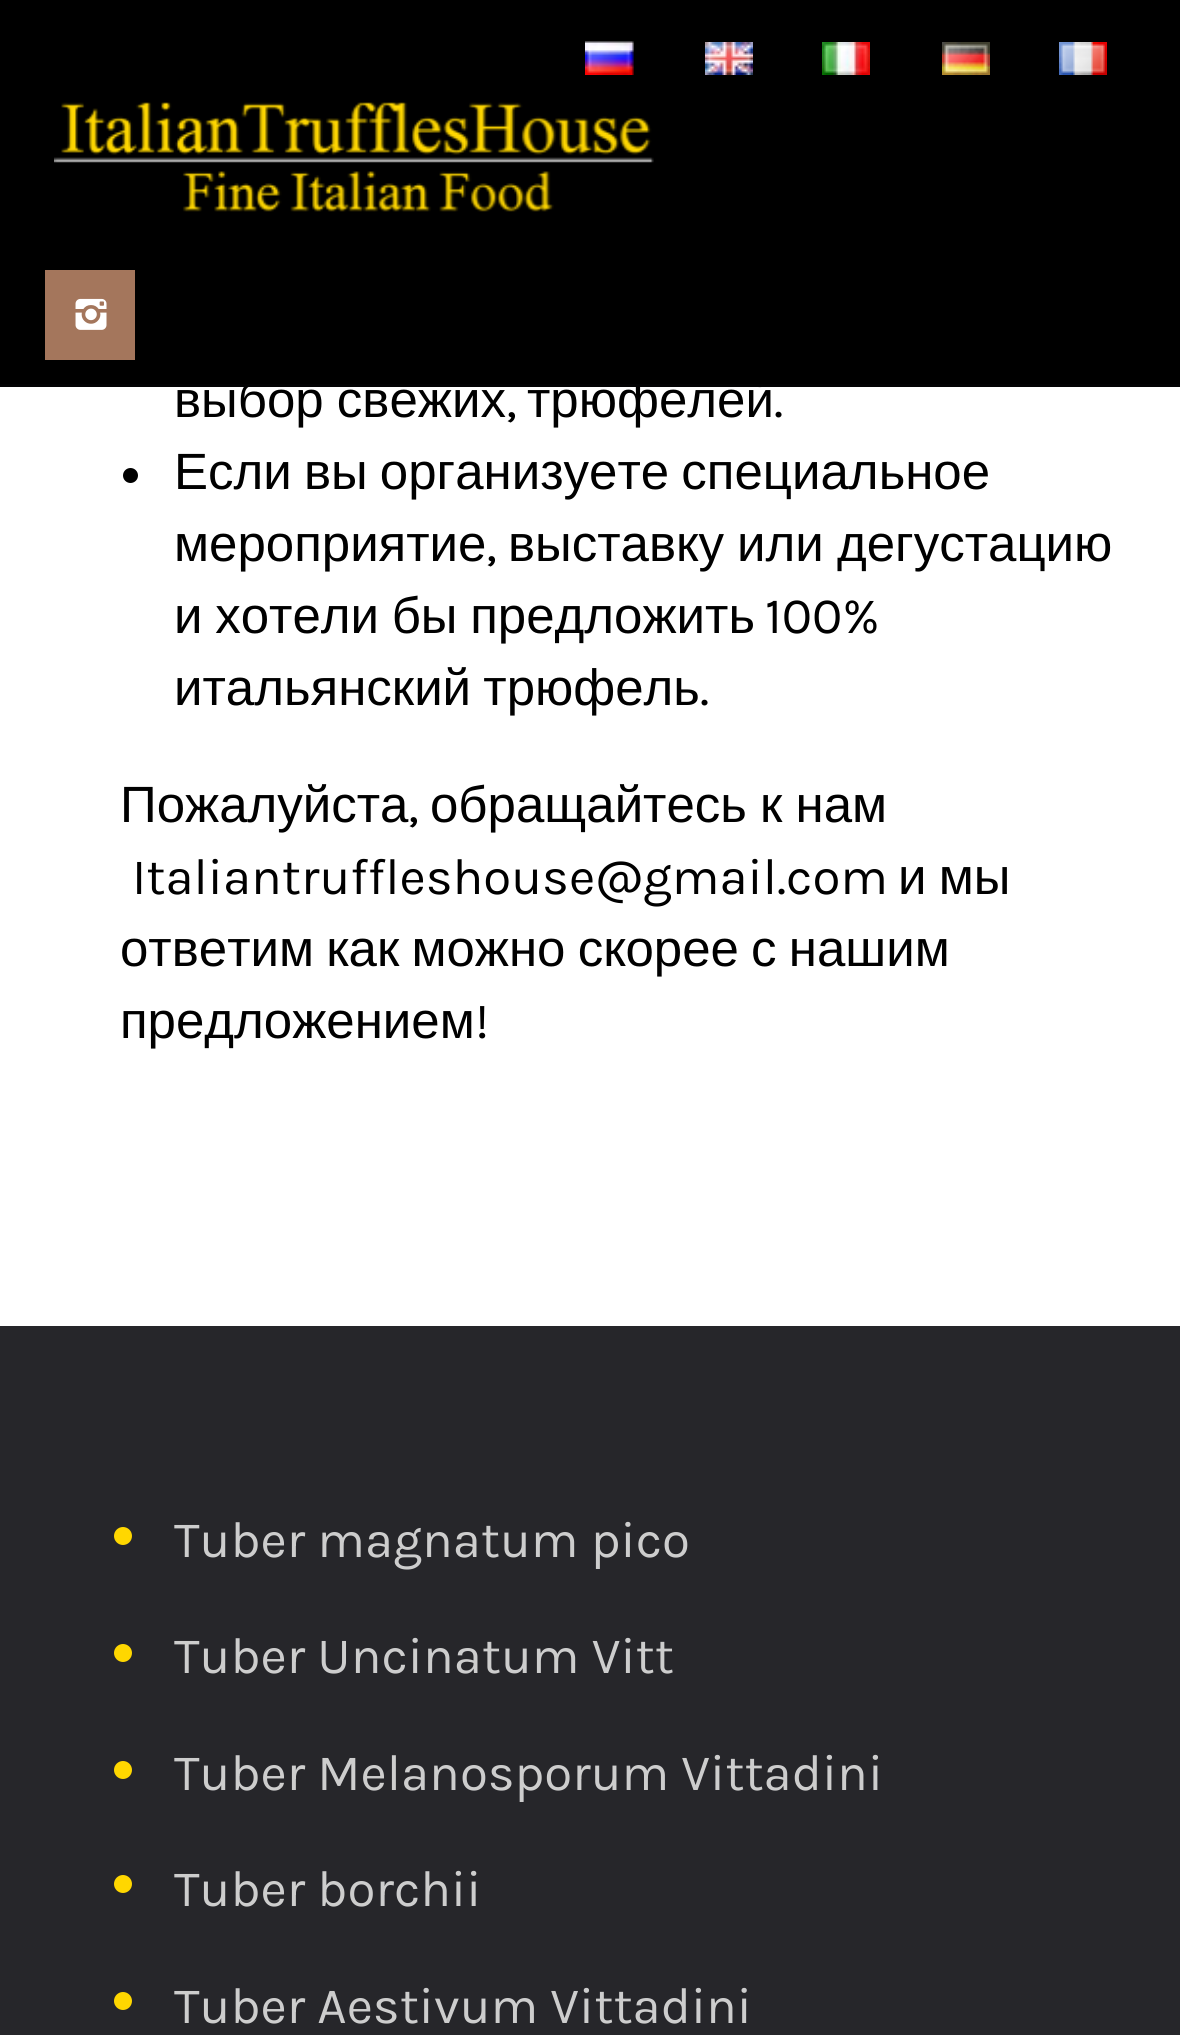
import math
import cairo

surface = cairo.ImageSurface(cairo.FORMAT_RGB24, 1180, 2035)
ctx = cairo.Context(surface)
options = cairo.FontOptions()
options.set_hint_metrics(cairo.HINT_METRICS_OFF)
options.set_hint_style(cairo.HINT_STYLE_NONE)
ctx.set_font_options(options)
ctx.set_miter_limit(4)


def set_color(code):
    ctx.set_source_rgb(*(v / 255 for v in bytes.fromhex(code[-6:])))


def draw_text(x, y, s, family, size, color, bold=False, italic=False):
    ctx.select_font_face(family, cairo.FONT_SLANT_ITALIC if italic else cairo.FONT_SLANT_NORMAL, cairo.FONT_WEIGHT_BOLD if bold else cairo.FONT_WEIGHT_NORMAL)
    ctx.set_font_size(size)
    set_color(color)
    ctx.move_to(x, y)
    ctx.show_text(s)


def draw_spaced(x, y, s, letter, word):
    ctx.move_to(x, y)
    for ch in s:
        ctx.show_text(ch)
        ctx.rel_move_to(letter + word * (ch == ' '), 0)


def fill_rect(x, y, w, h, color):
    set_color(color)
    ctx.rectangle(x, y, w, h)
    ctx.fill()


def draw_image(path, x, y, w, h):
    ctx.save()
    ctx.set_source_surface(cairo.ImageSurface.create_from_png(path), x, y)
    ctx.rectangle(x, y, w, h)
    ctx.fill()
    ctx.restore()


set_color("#26262a")
ctx.paint()
fill_rect(0, 0, 1180, 384, "#000000")
fill_rect(0, 387, 1180, 939, "#ffffff")
ctx.select_font_face("Liberation Sans")
ctx.set_font_size(51)
set_color("#000000")
draw_spaced(174, 417, "выбор свежих", 0, -1)
draw_text(527, 417, "трюфелей", "Liberation Sans", 51, "#000000")
fill_rect(0, 384, 1180, 3, "#030304")
draw_image("assets/img1.png", 585, 41, 49, 34)
draw_image("assets/img2.png", 705, 42, 48, 33)
draw_image("assets/img3.png", 822, 42, 48, 33)
draw_image("assets/img4.png", 942, 42, 48, 33)
draw_image("assets/img5.png", 1059, 42, 48, 33)
fill_rect(45, 270, 90, 90, "#a4765c")
draw_image("assets/img6.png", 75, 298, 32, 32)
draw_image("assets/img7.png", 54, 102, 600, 110)
draw_text(506, 417, ",", "Karla", 51, "#000000")
draw_text(774, 417, ".", "Karla", 51, "#000000")
ctx.new_path()
ctx.arc(130.5, 475.5, 7.5, 0, 2 * math.pi)
ctx.fill()
ctx.select_font_face("Liberation Sans")
draw_spaced(174, 489, "Если вы организуете специальное", 0, -2)
draw_text(174, 561, "мероприятие", "Liberation Sans", 51, "#000000")
draw_text(486, 561, ",", "Karla", 51, "#000000")
ctx.select_font_face("Liberation Sans")
draw_spaced(508, 561, "выставку или дегустацию", 0, -1)
draw_spaced(174, 633, "и хотели бы предложить", 0, -1.5)
draw_text(765, 633, "100%", "Karla", 51, "#000000")
ctx.select_font_face("Liberation Sans")
draw_spaced(174, 705, "итальянский трюфель", 0, -2)
draw_text(700, 705, ".", "Karla", 51, "#000000")
draw_text(120, 822, "Пожалуйста", "Liberation Sans", 51, "#000000")
draw_text(408, 822, ",", "Karla", 51, "#000000")
ctx.select_font_face("Liberation Sans")
draw_spaced(430, 822, "обращайтесь к нам", 0, -1)
draw_text(132, 894, "Italiantruffleshouse@gmail.com", "Karla", 51, "#000000")
ctx.select_font_face("Liberation Sans")
draw_spaced(898, 894, "и мы", 0, -2)
draw_spaced(120, 966, "ответим как можно скорее с нашим", 0, -2)
draw_text(120, 1038, "предложением", "Liberation Sans", 51, "#000000")
draw_text(475, 1038, "!", "Karla", 51, "#000000")
set_color("#ffd700")
ctx.new_path()
ctx.arc(123, 1536, 9, 0, 2 * math.pi)
ctx.fill()
draw_text(174, 1557, "Tuber magnatum pico", "Karla", 51, "#cdcdcd")
set_color("#ffd700")
ctx.new_path()
ctx.arc(123, 1653, 9, 0, 2 * math.pi)
ctx.fill()
draw_text(174, 1673, "Tuber Uncinatum Vitt", "Karla", 51, "#cdcdcd")
set_color("#ffd700")
ctx.new_path()
ctx.arc(123, 1770, 9, 0, 2 * math.pi)
ctx.fill()
draw_text(174, 1790, "Tuber Melanosporum Vittadini", "Karla", 51, "#cdcdcd")
set_color("#ffd700")
ctx.new_path()
ctx.arc(123, 1884, 9, 0, 2 * math.pi)
ctx.fill()
draw_text(174, 1906, "Tuber borchii", "Karla", 51, "#cdcdcd")
set_color("#ffd700")
ctx.new_path()
ctx.arc(123, 2001, 9, 0, 2 * math.pi)
ctx.fill()
draw_text(174, 2023, "Tuber Aestivum Vittadini", "Karla", 51, "#cdcdcd")
surface.write_to_png("output.png")
